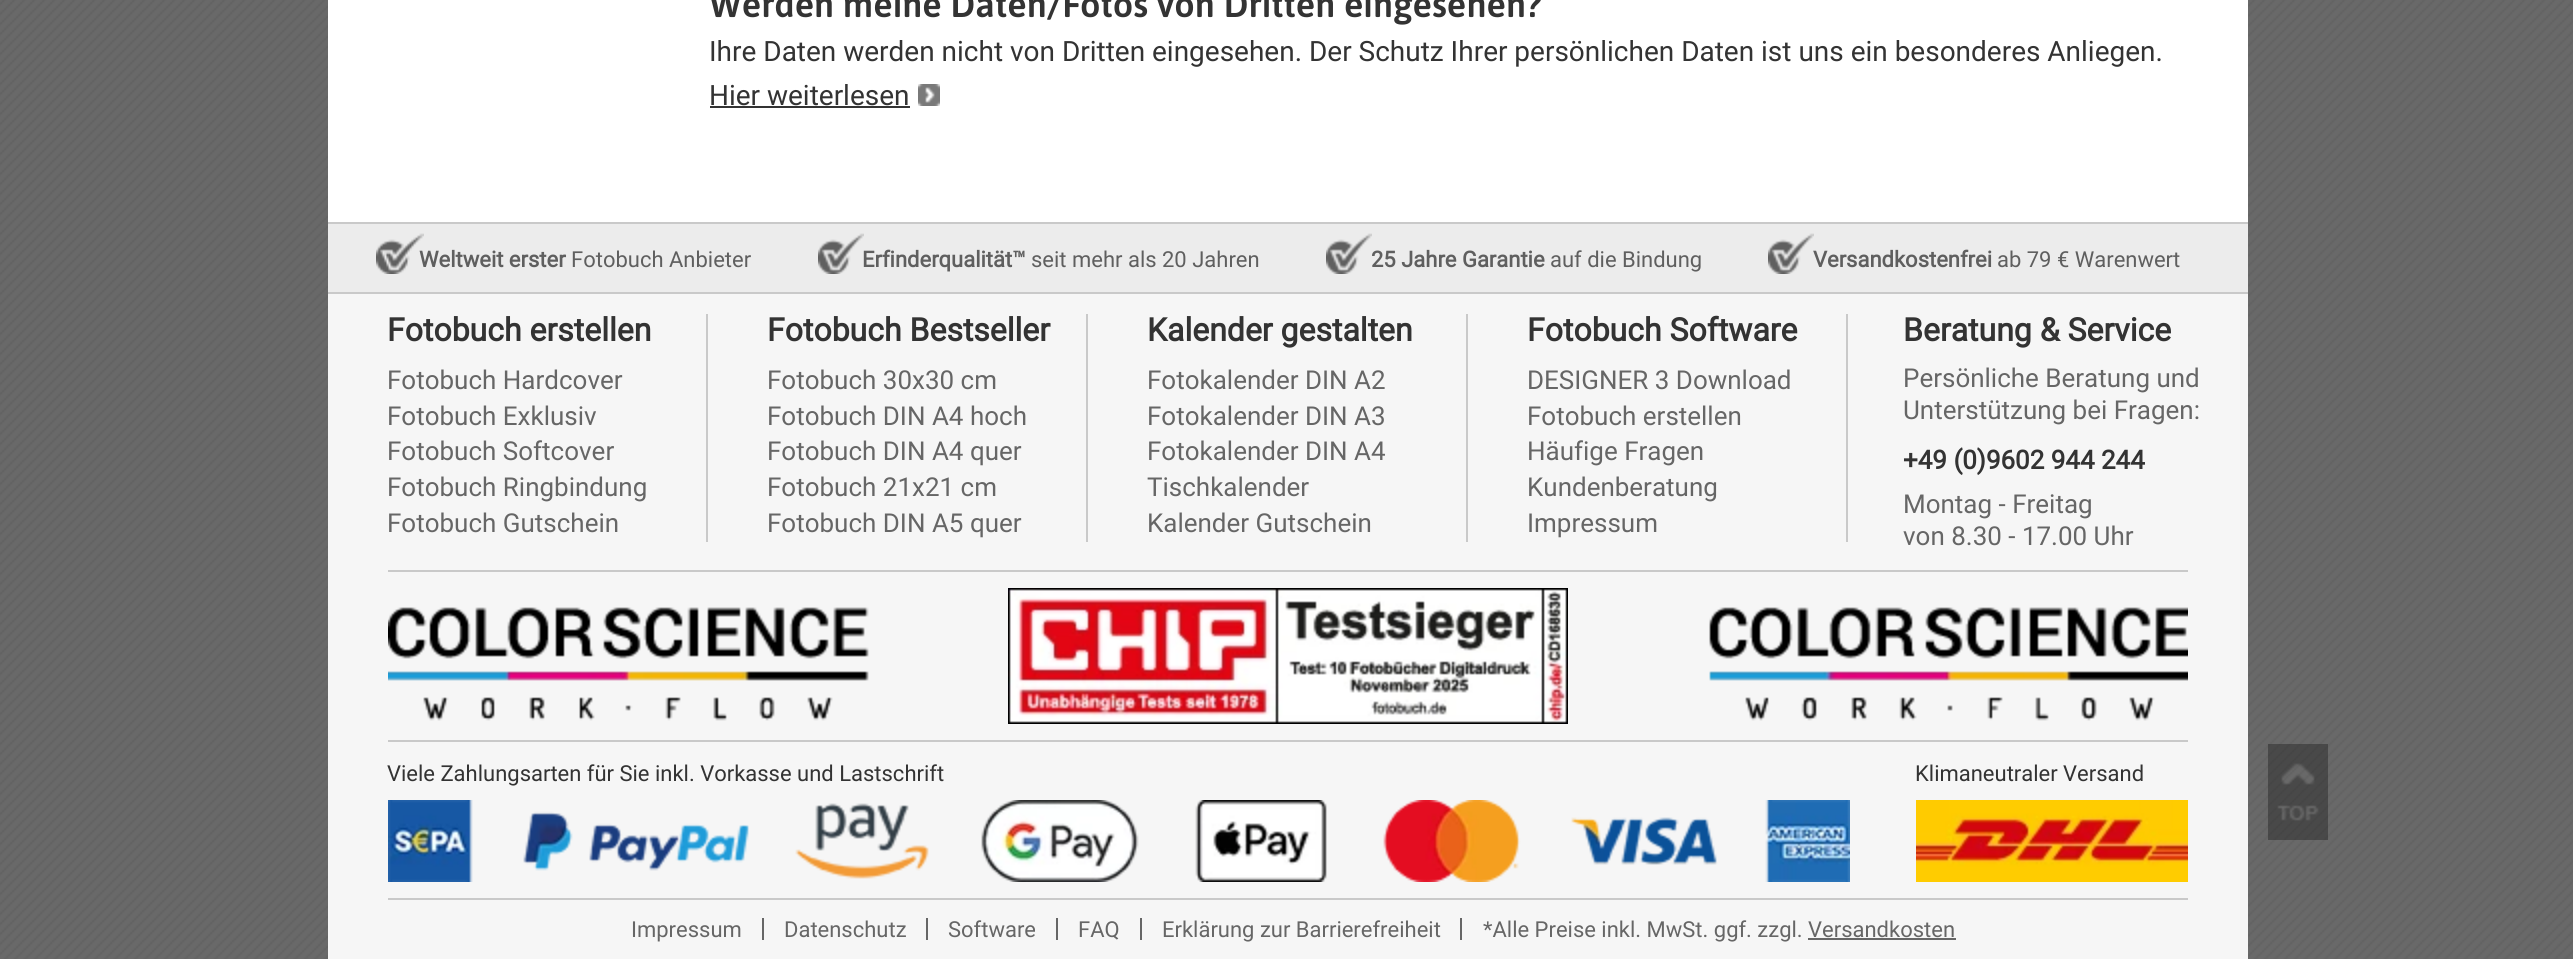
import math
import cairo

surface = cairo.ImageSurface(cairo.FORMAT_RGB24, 2573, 959)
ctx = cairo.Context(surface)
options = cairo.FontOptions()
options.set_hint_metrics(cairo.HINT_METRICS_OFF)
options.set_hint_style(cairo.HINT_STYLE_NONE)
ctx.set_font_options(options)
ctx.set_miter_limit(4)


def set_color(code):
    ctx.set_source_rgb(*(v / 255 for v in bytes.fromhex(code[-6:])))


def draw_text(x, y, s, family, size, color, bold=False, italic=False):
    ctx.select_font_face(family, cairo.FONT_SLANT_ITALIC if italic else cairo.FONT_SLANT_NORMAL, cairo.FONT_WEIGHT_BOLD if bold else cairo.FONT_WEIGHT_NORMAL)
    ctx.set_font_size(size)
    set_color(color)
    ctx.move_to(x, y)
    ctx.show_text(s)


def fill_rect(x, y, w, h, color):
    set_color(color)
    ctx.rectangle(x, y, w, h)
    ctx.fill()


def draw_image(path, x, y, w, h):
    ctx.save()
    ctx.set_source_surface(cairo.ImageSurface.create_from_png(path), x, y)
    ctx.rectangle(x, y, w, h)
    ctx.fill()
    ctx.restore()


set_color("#616161")
ctx.paint()
draw_image("assets/img1.png", 0, 0, 2573, 959)
fill_rect(328, 0, 1920, 222, "#ffffff")
draw_text(709, 17, "Werden meine Daten/Fotos von Dritten eingesehen?", "Asap SemiBold", 36, "#333333")
draw_text(709, 61, "Ihre Daten werden nicht von Dritten eingesehen. Der Schutz Ihrer persönlichen Daten ist uns ein besonderes Anliegen.", "Roboto", 28, "#333333")
draw_text(709, 105, "Hier weiterlesen", "Roboto", 28, "#333333")
fill_rect(710, 106, 200, 2, "#333333")
draw_image("assets/img2.png", 918, 84, 22, 22)
fill_rect(328, 294, 1920, 665, "#f6f6f6")
fill_rect(328, 224, 1920, 68, "#ececec")
fill_rect(328, 222, 1920, 2, "#c9c9c9")
fill_rect(328, 292, 1920, 2, "#c9c9c9")
draw_image("assets/img3.png", 376, 233, 48, 41)
draw_text(419, 267, "Weltweit erster", "Roboto", 22, "#5f5f5f", bold=True)
draw_text(571, 267, "Fotobuch Anbieter", "Roboto", 22, "#5f5f5f")
draw_image("assets/img4.png", 818, 233, 46, 41)
draw_text(862, 267, "Erfinderqualität™", "Roboto", 22, "#5f5f5f", bold=True)
draw_text(1031, 267, "seit mehr als 20 Jahren", "Roboto", 22, "#5f5f5f")
draw_image("assets/img4.png", 1326, 233, 46, 41)
draw_text(1371, 267, "25 Jahre Garantie", "Roboto", 22, "#5f5f5f", bold=True)
draw_text(1550, 267, "auf die Bindung", "Roboto", 22, "#5f5f5f")
draw_image("assets/img4.png", 1768, 233, 46, 41)
draw_text(1813, 267, "Versandkostenfrei", "Roboto", 22, "#5f5f5f", bold=True)
draw_text(1997, 267, "ab 79 € Warenwert", "Roboto", 22, "#5f5f5f")
fill_rect(706, 314, 2, 228, "#c9c9c9")
draw_text(387, 341, "Fotobuch erstellen", "Roboto", 32, "#333333", bold=True)
draw_text(387, 389, "Fotobuch Hardcover", "Roboto", 26, "#666666")
draw_text(387, 425, "Fotobuch Exklusiv", "Roboto", 26, "#666666")
draw_text(387, 460, "Fotobuch Softcover", "Roboto", 26, "#666666")
draw_text(387, 496, "Fotobuch Ringbindung", "Roboto", 26, "#666666")
draw_text(387, 532, "Fotobuch Gutschein", "Roboto", 26, "#666666")
fill_rect(1086, 314, 2, 228, "#c9c9c9")
draw_text(767, 341, "Fotobuch Bestseller", "Roboto", 32, "#333333", bold=True)
draw_text(767, 389, "Fotobuch 30x30 cm", "Roboto", 26, "#666666")
draw_text(767, 425, "Fotobuch DIN A4 hoch", "Roboto", 26, "#666666")
draw_text(767, 460, "Fotobuch DIN A4 quer", "Roboto", 26, "#666666")
draw_text(767, 496, "Fotobuch 21x21 cm", "Roboto", 26, "#666666")
draw_text(767, 532, "Fotobuch DIN A5 quer", "Roboto", 26, "#666666")
fill_rect(1466, 314, 2, 228, "#c9c9c9")
draw_text(1147, 341, "Kalender gestalten", "Roboto", 32, "#333333", bold=True)
draw_text(1147, 389, "Fotokalender DIN A2", "Roboto", 26, "#666666")
draw_text(1147, 425, "Fotokalender DIN A3", "Roboto", 26, "#666666")
draw_text(1147, 460, "Fotokalender DIN A4", "Roboto", 26, "#666666")
draw_text(1147, 496, "Tischkalender", "Roboto", 26, "#666666")
draw_text(1147, 532, "Kalender Gutschein", "Roboto", 26, "#666666")
fill_rect(1846, 314, 2, 228, "#c9c9c9")
draw_text(1527, 341, "Fotobuch Software", "Roboto", 32, "#333333", bold=True)
draw_text(1527, 389, "DESIGNER 3 Download", "Roboto", 26, "#666666")
draw_text(1527, 425, "Fotobuch erstellen", "Roboto", 26, "#666666")
draw_text(1527, 460, "Häufige Fragen", "Roboto", 26, "#666666")
draw_text(1527, 496, "Kundenberatung", "Roboto", 26, "#666666")
draw_text(1527, 532, "Impressum", "Roboto", 26, "#666666")
draw_text(1903, 341, "Beratung & Service", "Roboto", 32, "#333333", bold=True)
draw_text(1903, 387, "Persönliche Beratung und", "Roboto", 26, "#666666")
draw_text(1903, 419, "Unterstützung bei Fragen:", "Roboto", 26, "#666666")
draw_text(1903, 469, "+49 (0)9602 944 244", "Roboto", 26, "#333333", bold=True)
draw_text(1903, 513, "Montag - Freitag", "Roboto", 26, "#666666")
draw_text(1903, 545, "von 8.30 - 17.00 Uhr", "Roboto", 26, "#666666")
fill_rect(388, 570, 1800, 2, "#c9c9c9")
draw_image("assets/img5.png", 388, 607, 481, 114)
draw_image("assets/img6.png", 1008, 588, 560, 136)
draw_image("assets/img7.png", 1709, 607, 479, 114)
fill_rect(388, 740, 1800, 2, "#c9c9c9")
fill_rect(388, 898, 1800, 2, "#c9c9c9")
draw_text(387, 781, "Viele Zahlungsarten für Sie inkl. Vorkasse und Lastschrift", "Roboto", 22, "#333333")
draw_image("assets/img8.png", 388, 800, 1462, 82)
draw_text(1915, 781, "Klimaneutraler Versand", "Roboto", 22, "#333333")
draw_image("assets/img9.png", 1916, 800, 272, 82)
draw_text(631, 937, "Impressum", "Roboto", 22, "#666666")
fill_rect(762, 918, 2, 22, "#666666")
draw_text(784, 937, "Datenschutz", "Roboto", 22, "#666666")
fill_rect(926, 918, 2, 22, "#666666")
draw_text(948, 937, "Software", "Roboto", 22, "#666666")
fill_rect(1056, 918, 2, 22, "#666666")
draw_text(1078, 937, "FAQ", "Roboto", 22, "#666666")
fill_rect(1140, 918, 2, 22, "#666666")
draw_text(1162, 937, "Erklärung zur Barrierefreiheit", "Roboto", 22, "#666666")
fill_rect(1460, 918, 2, 22, "#666666")
draw_text(1483, 937, "*Alle Preise inkl. MwSt. ggf. zzgl. Versandkosten", "Roboto", 22, "#666666")
fill_rect(1808, 938, 148, 2, "#666666")
draw_image("assets/img10.png", 2268, 744, 60, 96)
surface.write_to_png("output.png")
